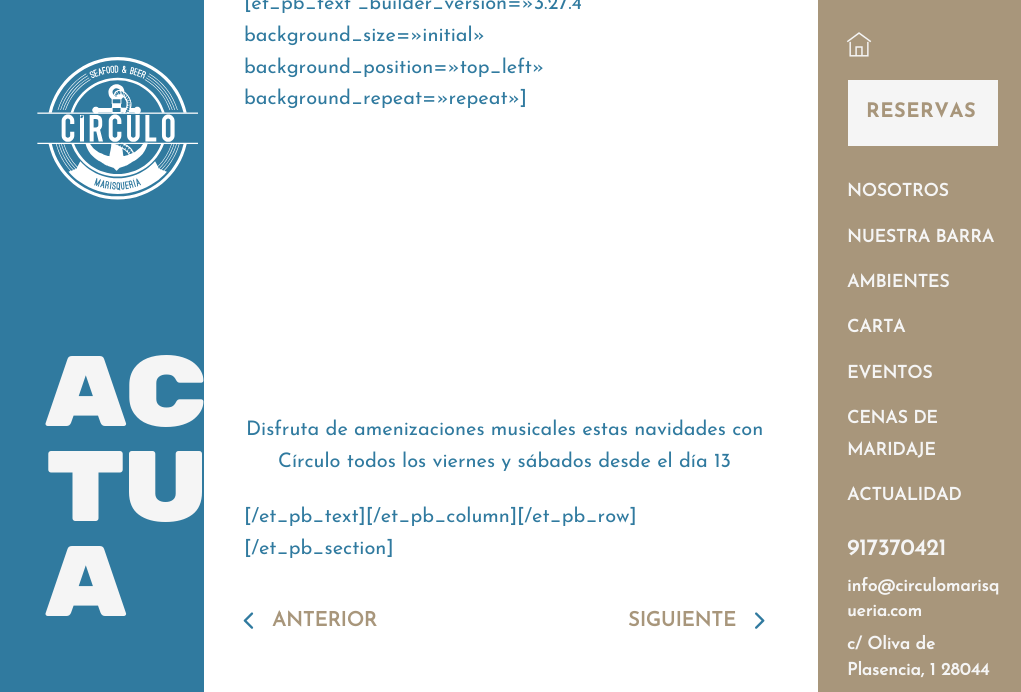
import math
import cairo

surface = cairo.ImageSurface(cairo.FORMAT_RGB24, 1021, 692)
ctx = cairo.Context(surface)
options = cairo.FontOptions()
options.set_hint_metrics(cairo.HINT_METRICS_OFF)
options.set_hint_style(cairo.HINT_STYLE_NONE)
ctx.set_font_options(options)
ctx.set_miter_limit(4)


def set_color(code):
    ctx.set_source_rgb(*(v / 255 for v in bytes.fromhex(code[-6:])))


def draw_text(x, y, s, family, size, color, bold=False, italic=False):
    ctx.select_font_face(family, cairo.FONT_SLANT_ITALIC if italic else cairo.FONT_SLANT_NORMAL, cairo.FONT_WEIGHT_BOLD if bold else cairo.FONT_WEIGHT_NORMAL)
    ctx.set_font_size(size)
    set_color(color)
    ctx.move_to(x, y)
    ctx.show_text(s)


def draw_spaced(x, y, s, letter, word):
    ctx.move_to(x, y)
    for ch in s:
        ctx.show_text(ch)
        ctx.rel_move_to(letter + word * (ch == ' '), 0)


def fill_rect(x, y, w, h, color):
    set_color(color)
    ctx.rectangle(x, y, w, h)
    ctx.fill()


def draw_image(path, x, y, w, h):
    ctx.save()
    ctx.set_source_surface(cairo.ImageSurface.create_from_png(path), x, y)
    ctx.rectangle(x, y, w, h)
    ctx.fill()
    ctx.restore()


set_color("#ffffff")
ctx.paint()
fill_rect(0, 0, 204, 692, "#307a9f")
draw_image("assets/img1.png", 37, 57, 161, 143)
ctx.select_font_face("Rubik Mono One")
ctx.set_font_size(100)
set_color("#f5f5f5")
draw_spaced(43, 426, "ac", -5, 0)
draw_spaced(43, 521, "tu", -5, 0)
draw_spaced(43, 616, "a", -5, 0)
draw_text(244, 9, "[et_pb_text _builder_version=»3.27.4", "Josefin Sans", 20, "#307a9f")
draw_text(244, 41, "background_size=»initial»", "Josefin Sans", 20, "#307a9f")
draw_text(244, 73, "background_position=»top_left»", "Josefin Sans", 20, "#307a9f")
draw_text(244, 104, "background_repeat=»repeat»]", "Josefin Sans", 20, "#307a9f")
draw_text(246, 435, "Disfruta de amenizaciones musicales estas navidades con", "Josefin Sans", 20, "#307a9f")
draw_text(278, 467, "Círculo todos los viernes y sábados desde el día 13", "Josefin Sans", 20, "#307a9f")
draw_text(244, 522, "[/et_pb_text][/et_pb_column][/et_pb_row]", "Josefin Sans", 20, "#307a9f")
draw_text(244, 554, "[/et_pb_section]", "Josefin Sans", 20, "#307a9f")
draw_image("assets/img2.png", 243, 612, 11, 17)
draw_text(272, 626, "ANTERIOR", "Josefin Sans", 20, "#a8967b", bold=True)
draw_text(628, 626, "SIGUIENTE", "Josefin Sans", 20, "#a8967b", bold=True)
draw_image("assets/img3.png", 755, 612, 10, 17)
fill_rect(818, 0, 203, 692, "#a8967b")
draw_image("assets/img4.png", 846, 32, 26, 25)
fill_rect(848, 80, 150, 66, "#f5f5f5")
ctx.select_font_face("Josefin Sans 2", cairo.FONT_SLANT_NORMAL, cairo.FONT_WEIGHT_BOLD)
set_color("#a8967b")
draw_spaced(866, 117, "RESERVAS", 0.5, 0)
draw_text(847, 196, "NOSOTROS", "Josefin Sans", 17.5, "#f5f5f5", bold=True)
draw_text(847, 242, "NUESTRA BARRA", "Josefin Sans", 17.5, "#f5f5f5", bold=True)
draw_text(847, 287, "AMBIENTES", "Josefin Sans", 17.5, "#f5f5f5", bold=True)
draw_text(847, 332, "CARTA", "Josefin Sans", 17.5, "#f5f5f5", bold=True)
draw_text(847, 378, "EVENTOS", "Josefin Sans", 17.5, "#f5f5f5", bold=True)
draw_text(847, 423, "CENAS DE", "Josefin Sans", 17.5, "#f5f5f5", bold=True)
draw_text(847, 455, "MARIDAJE", "Josefin Sans", 17.5, "#f5f5f5", bold=True)
draw_text(847, 500, "ACTUALIDAD", "Josefin Sans", 17.5, "#f5f5f5", bold=True)
draw_text(847, 555, "917370421", "Josefin Sans", 22.5, "#f5f5f5", bold=True)
draw_text(847, 591, "info@circulomarisq", "Josefin Sans", 17.5, "#f5f5f5", bold=True)
draw_text(847, 616, "ueria.com", "Josefin Sans", 17.5, "#f5f5f5", bold=True)
draw_text(847, 649, "c/ Oliva de", "Josefin Sans", 17.5, "#f5f5f5", bold=True)
draw_text(847, 675, "Plasencia, 1 28044", "Josefin Sans", 17.5, "#f5f5f5", bold=True)
surface.write_to_png("output.png")
